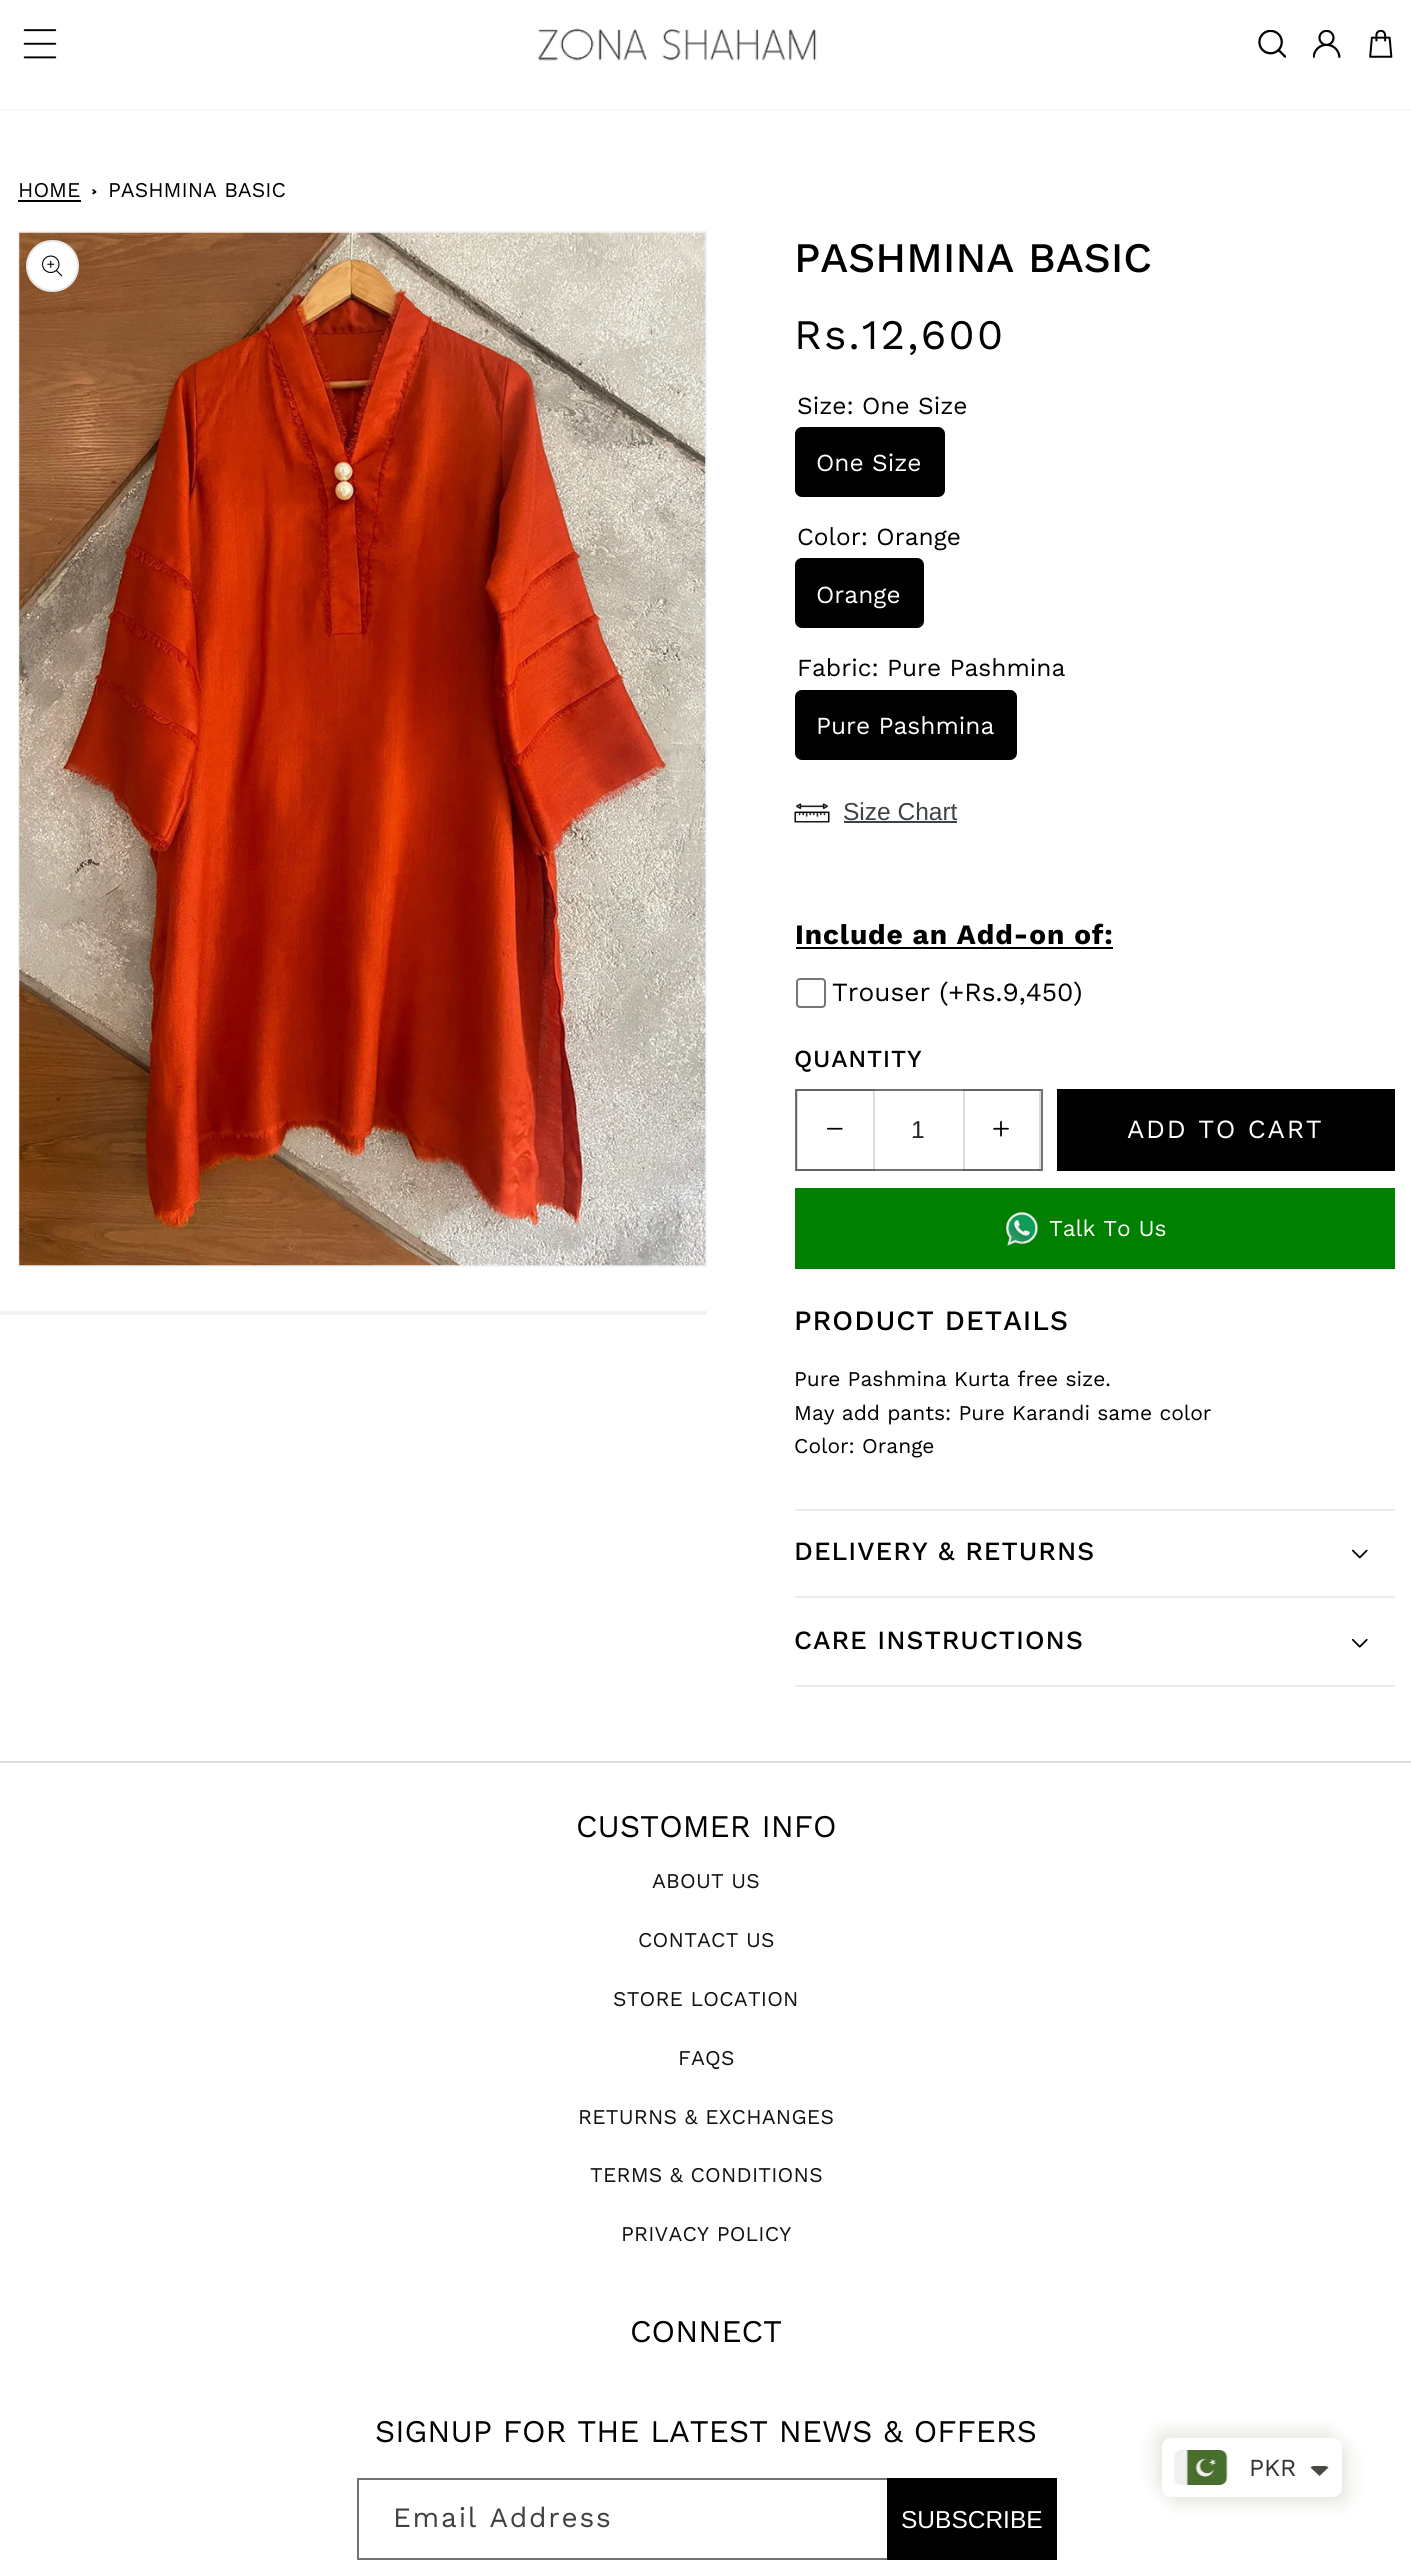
import math
import cairo

surface = cairo.ImageSurface(cairo.FORMAT_RGB24, 1411, 2571)
ctx = cairo.Context(surface)
options = cairo.FontOptions()
options.set_hint_metrics(cairo.HINT_METRICS_OFF)
options.set_hint_style(cairo.HINT_STYLE_NONE)
ctx.set_font_options(options)
ctx.set_miter_limit(4)


def set_color(code):
    ctx.set_source_rgb(*(v / 255 for v in bytes.fromhex(code[-6:])))


def draw_text(x, y, s, family, size, color, bold=False, italic=False):
    ctx.select_font_face(family, cairo.FONT_SLANT_ITALIC if italic else cairo.FONT_SLANT_NORMAL, cairo.FONT_WEIGHT_BOLD if bold else cairo.FONT_WEIGHT_NORMAL)
    ctx.set_font_size(size)
    set_color(color)
    ctx.move_to(x, y)
    ctx.show_text(s)


def draw_spaced(x, y, s, letter, word):
    ctx.move_to(x, y)
    for ch in s:
        ctx.show_text(ch)
        ctx.rel_move_to(letter + word * (ch == ' '), 0)


def fill_rect(x, y, w, h, color):
    set_color(color)
    ctx.rectangle(x, y, w, h)
    ctx.fill()


def rounded_rect(x, y, w, h, r):
    ctx.new_sub_path()
    for i, (u, v) in enumerate([(x + w - r, y + h - r), (x + r, y + h - r), (x + r, y + r), (x + w - r, y + r)]):
        ctx.arc(u, v, r, i * math.pi / 2, (i + 1) * math.pi / 2)
    ctx.close_path()


def draw_shadow(x, y, w, h, r, blur, alpha):
    ctx.push_group_with_content(cairo.CONTENT_ALPHA)
    ctx.set_operator(cairo.OPERATOR_SOURCE)
    for i in range(15, -16, -2):
        e = blur * i / 6
        if min(w, h) + 2 * e > 0:
            ctx.set_source_rgba(0, 0, 0, alpha * math.erfc((i - 1) / 8.5) / 2)
            rounded_rect(x - e, y - e, w + 2 * e, h + 2 * e, max(0, min(r + e + blur * .6, min(w, h) / 2 + e)))
            ctx.fill()
    ctx.mask(ctx.pop_group())


def draw_image(path, x, y, w, h):
    ctx.save()
    ctx.set_source_surface(cairo.ImageSurface.create_from_png(path), x, y)
    ctx.rectangle(x, y, w, h)
    ctx.fill()
    ctx.restore()


set_color("#ffffff")
ctx.paint()
fill_rect(0, 109, 1411, 2, "#f7f7f7")
draw_image("assets/img1.png", 23, 29, 34, 30)
draw_image("assets/img2.png", 538, 28, 279, 33)
draw_image("assets/img3.png", 1258, 30, 28, 28)
draw_image("assets/img4.png", 1313, 30, 28, 28)
draw_image("assets/img5.png", 1369, 30, 24, 28)
draw_text(18, 197, "HOME", "Work Sans", 21, "#000000")
fill_rect(18, 200, 63, 2, "#000000")
ctx.new_path()
ctx.move_to(93.5, 189)
ctx.line_to(96.5, 192)
ctx.line_to(95, 193)
ctx.line_to(92, 190)
ctx.close_path()
ctx.fill()
ctx.new_path()
ctx.move_to(95, 190.5)
ctx.line_to(96.5, 192)
ctx.line_to(93.5, 194.5)
ctx.line_to(92, 193.5)
ctx.close_path()
ctx.fill()
draw_text(108, 197, "PASHMINA BASIC", "Work Sans", 21, "#000000")
ctx.rectangle(19, 232, 687, 1034)
set_color("#f2f2f2")
ctx.stroke()
draw_image("assets/img6.png", 19, 232, 687, 1034)
set_color("#ffffff")
rounded_rect(26, 240, 53, 52, 26)
ctx.fill()
rounded_rect(27, 241, 51, 50, 25)
ctx.set_source_rgba(0, 0, 0, 0.1)
ctx.stroke()
draw_image("assets/img7.png", 42, 255, 21, 22)
fill_rect(0, 1311, 707, 4, "#f2f2f2")
draw_text(794, 272, "PASHMINA BASIC", "Work Sans Medium", 42, "#000000")
ctx.select_font_face("Work Sans")
draw_spaced(794, 349, "Rs.12,600", 2.25, 0)
draw_text(797, 414, "Size: One Size", "Work Sans", 24.5, "#000000")
rounded_rect(796, 428, 148, 68, 6)
ctx.fill_preserve()
ctx.stroke()
draw_text(816, 471, "One Size", "Work Sans", 24.5, "#ffffff")
draw_text(797, 545, "Color: Orange", "Work Sans", 24.5, "#000000")
rounded_rect(796, 559, 127, 68, 6)
ctx.fill_preserve()
ctx.stroke()
draw_text(816, 603, "Orange", "Work Sans", 24.5, "#ffffff")
draw_text(797, 676, "Fabric: Pure Pashmina", "Work Sans", 24.5, "#000000")
rounded_rect(796, 691, 220, 68, 6)
ctx.fill_preserve()
ctx.stroke()
draw_text(816, 734, "Pure Pashmina", "Work Sans", 24.5, "#ffffff")
draw_image("assets/img8.png", 794, 803, 36, 20)
draw_text(843, 820, "Size Chart", "Liberation Sans", 24.5, "#3d4246")
fill_rect(844, 821, 113, 2, "#3d4246")
ctx.select_font_face("Work Sans", cairo.FONT_SLANT_NORMAL, cairo.FONT_WEIGHT_BOLD)
ctx.set_font_size(28)
set_color("#000000")
draw_spaced(795, 944, "Include an Add-on of:", 0.9, 0)
fill_rect(796, 947, 317, 2, "#000000")
rounded_rect(797, 979, 28, 28, 3)
set_color("#767676")
ctx.stroke()
draw_text(832, 1001, "Trouser (+Rs.9,450)", "Work Sans", 26.25, "#000000")
fill_rect(1057, 1089, 338, 82, "#000000")
set_color("#ffffff")
draw_spaced(1127, 1138, "ADD TO CART", 1.75, 0)
ctx.select_font_face("Work Sans Medium")
ctx.set_font_size(24.5)
set_color("#000000")
draw_spaced(794, 1067, "QUANTITY", 0.75, 0)
ctx.rectangle(797, 1090, 77, 80)
set_color("#dddddd")
ctx.stroke()
draw_image("assets/img9.png", 826, 1127, 17, 3)
ctx.rectangle(964, 1090, 76, 80)
ctx.stroke()
draw_image("assets/img10.png", 993, 1120, 16, 17)
ctx.rectangle(796, 1090, 246, 80)
ctx.set_source_rgba(0, 0, 0, 0.55)
ctx.stroke()
draw_text(911, 1138, "1", "Liberation Sans", 24.5, "#262626")
fill_rect(795, 1188, 600, 81, "#008000")
draw_image("assets/img11.png", 1006, 1212, 32, 34)
draw_text(1049, 1236, "Talk To Us", "Work Sans", 22.75, "#ffffff")
ctx.select_font_face("Work Sans Medium")
ctx.set_font_size(28)
set_color("#000000")
draw_spaced(794, 1330, "PRODUCT DETAILS", 1, 0)
draw_text(794, 1386, "Pure Pashmina Kurta free size.", "Work Sans", 21, "#000000")
draw_text(794, 1420, "May add pants: Pure Karandi same color", "Work Sans", 21, "#000000")
draw_text(794, 1453, "Color: Orange", "Work Sans", 21, "#000000")
fill_rect(795, 1509, 600, 2, "#ebebeb")
fill_rect(795, 1596, 600, 2, "#ebebeb")
ctx.select_font_face("Work Sans Medium")
ctx.set_font_size(26.25)
set_color("#000000")
draw_spaced(794, 1560, "DELIVERY & RETURNS", 1, 0)
draw_image("assets/img12.png", 1351, 1549, 17, 10)
fill_rect(795, 1685, 600, 2, "#ebebeb")
set_color("#000000")
draw_spaced(794, 1649, "CARE INSTRUCTIONS", 1, 0)
draw_image("assets/img13.png", 1351, 1638, 17, 10)
fill_rect(0, 1761, 1411, 2, "#dddddd")
draw_text(576, 1837, "CUSTOMER INFO", "Work Sans", 31.5, "#000000")
ctx.set_font_size(21)
set_color("#111111")
draw_spaced(652, 1888, "ABOUT US", 0.2, 0)
draw_spaced(638, 1947, "CONTACT US", 0.2, 0)
draw_spaced(613, 2006, "STORE LOCATION", 0.2, 0)
draw_spaced(678, 2065, "FAQS", 0.2, 0)
draw_spaced(578, 2124, "RETURNS & EXCHANGES", 0.2, 0)
draw_spaced(590, 2182, "TERMS & CONDITIONS", 0.2, 0)
draw_spaced(621, 2241, "PRIVACY POLICY", 0.2, 0)
draw_text(630, 2342, "CONNECT", "Work Sans", 31.5, "#000000")
draw_text(375, 2442, "SIGNUP FOR THE LATEST NEWS & OFFERS", "Work Sans", 31.5, "#000000")
fill_rect(887, 2478, 170, 82, "#000000")
ctx.rectangle(358, 2479, 698, 80)
ctx.set_source_rgba(0, 0, 0, 0.55)
ctx.stroke()
ctx.set_font_size(28)
set_color("#404040")
draw_spaced(393, 2527, "Email Address", 1.75, 0)
draw_text(901, 2528, "SUBSCRIBE", "Liberation Sans", 24.5, "#ffffff")
set_color("#e8e8e2")
draw_shadow(1155, 2431, 180, 59, 9, 8, 1)
draw_shadow(1169, 2445, 180, 59, 9, 8, 1)
set_color("#ffffff")
rounded_rect(1162, 2438, 180, 59, 9)
ctx.fill()
draw_image("assets/img14.png", 1174, 2450, 54, 35)
draw_text(1249, 2476, "PKR", "Work Sans", 24.5, "#333333")
set_color("#474942")
ctx.new_path()
ctx.move_to(1314, 2466)
ctx.line_to(1325, 2466)
ctx.curve_to(1326, 2466, 1327.5, 2466.5, 1328.5, 2467.5)
ctx.line_to(1319.5, 2476)
ctx.line_to(1310.5, 2467.5)
ctx.curve_to(1311.5, 2466.5, 1313, 2466, 1314, 2466)
ctx.close_path()
ctx.fill()
surface.write_to_png("output.png")
